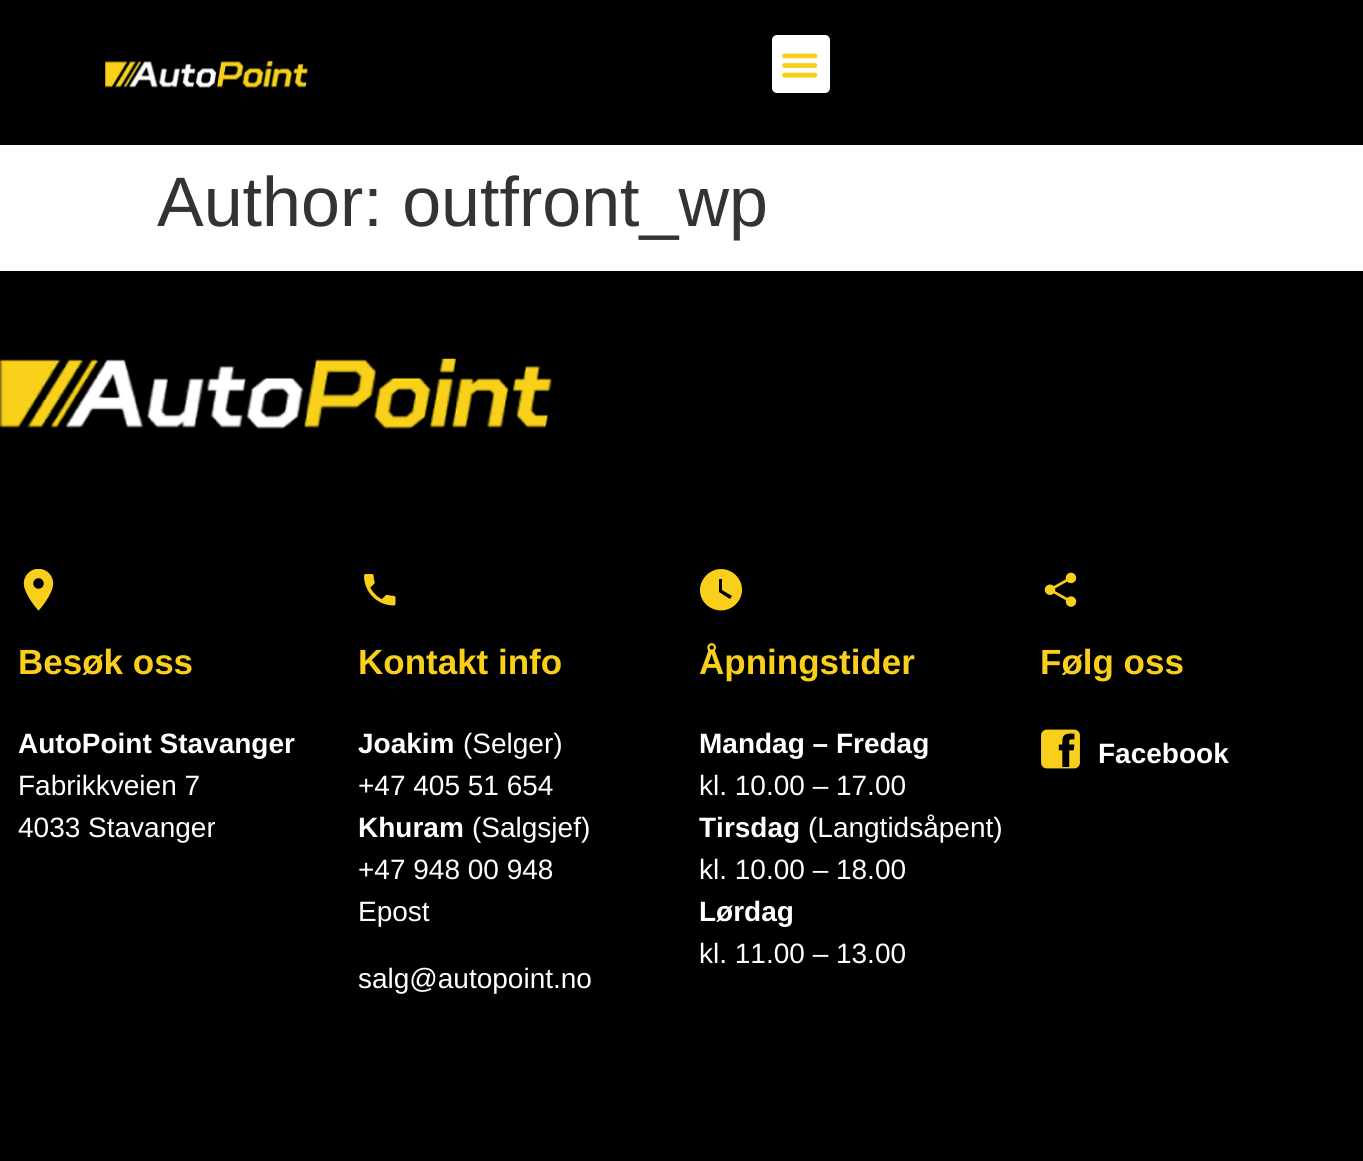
import math
import cairo

surface = cairo.ImageSurface(cairo.FORMAT_RGB24, 1363, 1161)
ctx = cairo.Context(surface)
options = cairo.FontOptions()
options.set_hint_metrics(cairo.HINT_METRICS_OFF)
options.set_hint_style(cairo.HINT_STYLE_NONE)
ctx.set_font_options(options)
ctx.set_miter_limit(4)


def set_color(code):
    ctx.set_source_rgb(*(v / 255 for v in bytes.fromhex(code[-6:])))


def draw_text(x, y, s, family, size, color, bold=False, italic=False):
    ctx.select_font_face(family, cairo.FONT_SLANT_ITALIC if italic else cairo.FONT_SLANT_NORMAL, cairo.FONT_WEIGHT_BOLD if bold else cairo.FONT_WEIGHT_NORMAL)
    ctx.set_font_size(size)
    set_color(color)
    ctx.move_to(x, y)
    ctx.show_text(s)


def fill_rect(x, y, w, h, color):
    set_color(color)
    ctx.rectangle(x, y, w, h)
    ctx.fill()


def rounded_rect(x, y, w, h, r):
    ctx.new_sub_path()
    for i, (u, v) in enumerate([(x + w - r, y + h - r), (x + r, y + h - r), (x + r, y + r), (x + w - r, y + r)]):
        ctx.arc(u, v, r, i * math.pi / 2, (i + 1) * math.pi / 2)
    ctx.close_path()


def draw_image(path, x, y, w, h):
    ctx.save()
    ctx.set_source_surface(cairo.ImageSurface.create_from_png(path), x, y)
    ctx.rectangle(x, y, w, h)
    ctx.fill()
    ctx.restore()


set_color("#ffffff")
ctx.paint()
fill_rect(0, 0, 1363, 145, "#000000")
draw_image("assets/img1.png", 105, 61, 203, 27)
set_color("#ffffff")
rounded_rect(772, 35, 58, 58, 5)
ctx.fill()
draw_image("assets/img2.png", 782, 53, 36, 25)
draw_text(157, 226, "Author: outfront_wp", "Liberation Sans", 70, "#333333")
fill_rect(0, 271, 1363, 890, "#000000")
draw_image("assets/img3.png", 0, 358, 552, 71)
draw_image("assets/img4.png", 23, 569, 31, 42)
draw_text(18, 674, "Besøk oss", "Liberation Sans", 35, "#f9cf1b", bold=True)
draw_text(18, 753, "AutoPoint Stavanger", "Liberation Sans", 28, "#ffffff", bold=True)
draw_text(18, 795, "Fabrikkveien 7", "Liberation Sans", 28, "#ffffff")
draw_text(18, 837, "4033 Stavanger", "Liberation Sans", 28, "#ffffff")
draw_image("assets/img5.png", 364, 574, 32, 32)
draw_text(358, 674, "Kontakt info", "Liberation Sans", 35, "#f9cf1b", bold=True)
draw_text(358, 753, "Joakim", "Liberation Sans", 28, "#ffffff", bold=True)
draw_text(463, 753, "(Selger)", "Liberation Sans", 28, "#ffffff")
draw_text(358, 795, "+47 405 51 654", "Liberation Sans", 28, "#ffffff")
draw_text(358, 837, "Khuram", "Liberation Sans", 28, "#ffffff", bold=True)
draw_text(472, 837, "(Salgsjef)", "Liberation Sans", 28, "#ffffff")
draw_text(358, 879, "+47 948 00 948", "Liberation Sans", 28, "#ffffff")
draw_text(358, 921, "Epost", "Liberation Sans", 28, "#ffffff")
draw_text(358, 988, "salg@autopoint.no", "Liberation Sans", 28, "#ffffff")
set_color("#f9cf1b")
ctx.new_path()
ctx.move_to(721, 569)
ctx.curve_to(709, 569, 699, 580, 700, 592)
ctx.curve_to(702, 610, 725, 617, 737, 603)
ctx.curve_to(749, 589, 738, 569, 721, 569)
ctx.close_path()
ctx.move_to(730, 599)
ctx.line_to(719, 592)
ctx.line_to(719, 579)
ctx.line_to(722, 579)
ctx.line_to(722, 590)
ctx.line_to(732, 596)
ctx.close_path()
ctx.fill()
draw_text(699, 674, "Åpningstider", "Liberation Sans", 35, "#f9cf1b", bold=True)
draw_text(699, 753, "Mandag – Fredag", "Liberation Sans", 28, "#ffffff", bold=True)
draw_text(699, 795, "kl. 10.00 – 17.00", "Liberation Sans", 28, "#ffffff")
draw_text(699, 837, "Tirsdag", "Liberation Sans", 28, "#ffffff", bold=True)
draw_text(808, 837, "(Langtidsåpent)", "Liberation Sans", 28, "#ffffff")
draw_text(699, 879, "kl. 10.00 – 18.00", "Liberation Sans", 28, "#ffffff")
draw_text(699, 921, "Lørdag", "Liberation Sans", 28, "#ffffff", bold=True)
draw_text(699, 963, "kl. 11.00 – 13.00", "Liberation Sans", 28, "#ffffff")
draw_image("assets/img6.png", 1044, 572, 33, 35)
draw_text(1040, 674, "Følg oss", "Liberation Sans", 35, "#f9cf1b", bold=True)
draw_image("assets/img7.png", 1041, 729, 39, 40)
draw_text(1098, 763, "Facebook", "Liberation Sans", 28, "#ffffff", bold=True)
surface.write_to_png("output.png")
